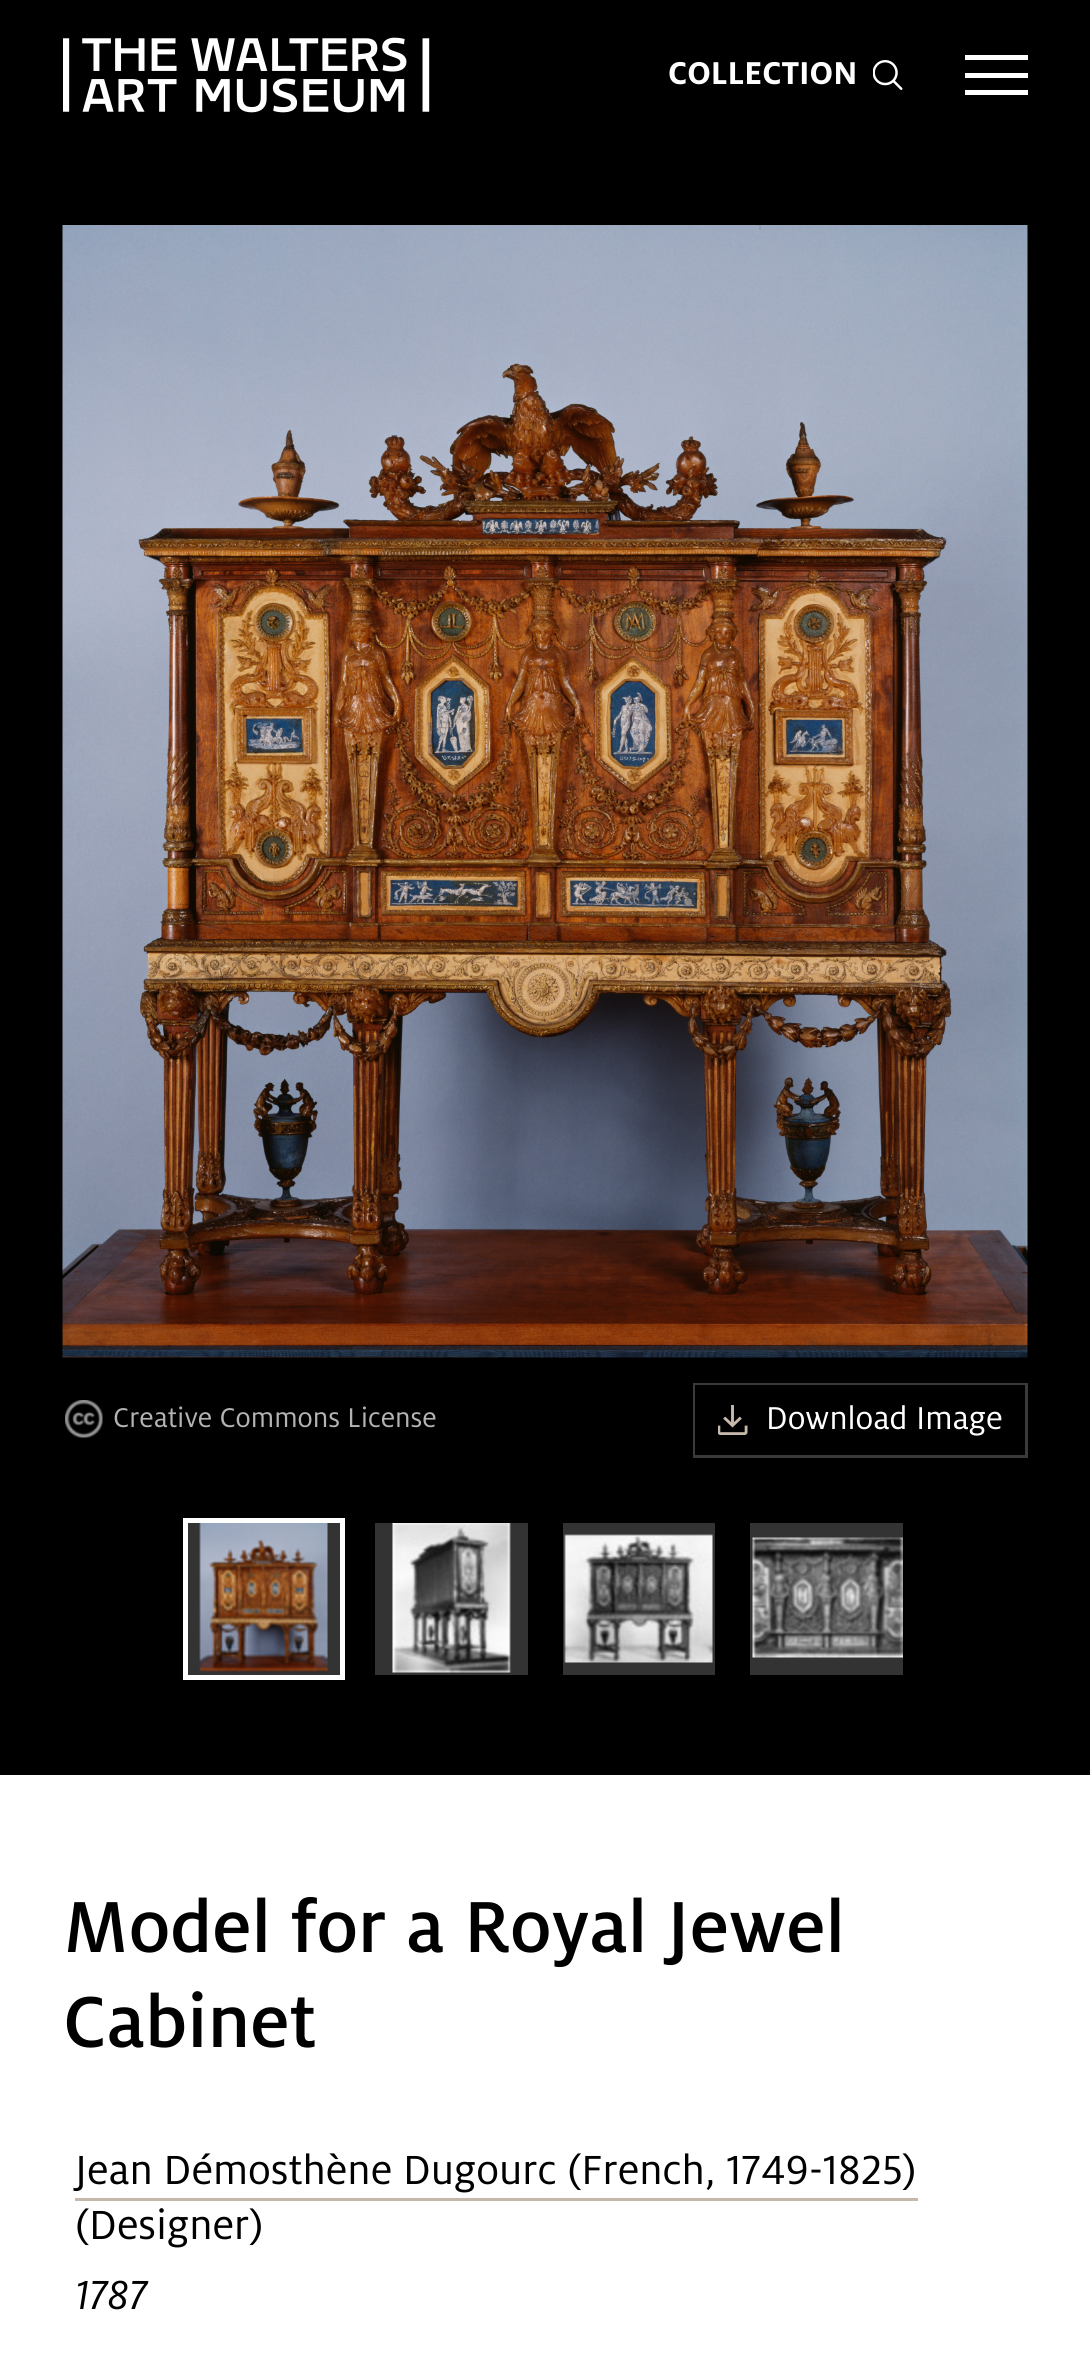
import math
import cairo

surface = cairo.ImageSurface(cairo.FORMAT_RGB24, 1090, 2370)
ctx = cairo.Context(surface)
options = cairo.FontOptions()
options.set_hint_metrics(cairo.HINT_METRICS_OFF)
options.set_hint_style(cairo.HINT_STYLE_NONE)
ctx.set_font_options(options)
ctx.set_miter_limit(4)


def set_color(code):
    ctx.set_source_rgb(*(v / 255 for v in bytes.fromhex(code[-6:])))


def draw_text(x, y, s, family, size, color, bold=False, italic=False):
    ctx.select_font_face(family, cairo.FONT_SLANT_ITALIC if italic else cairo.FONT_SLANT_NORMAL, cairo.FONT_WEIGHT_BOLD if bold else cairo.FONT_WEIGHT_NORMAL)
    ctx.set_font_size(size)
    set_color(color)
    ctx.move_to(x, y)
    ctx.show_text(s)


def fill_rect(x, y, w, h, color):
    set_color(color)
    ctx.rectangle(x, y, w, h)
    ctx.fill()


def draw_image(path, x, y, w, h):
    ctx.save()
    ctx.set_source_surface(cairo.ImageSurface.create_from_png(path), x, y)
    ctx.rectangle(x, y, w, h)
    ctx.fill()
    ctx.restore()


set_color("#ffffff")
ctx.paint()
fill_rect(0, 0, 1090, 1775, "#000000")
draw_image("assets/img1.png", 63, 37, 367, 76)
draw_text(668, 84, "COLLECTION", "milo", 35, "#ffffff", bold=True)
draw_image("assets/img2.png", 873, 60, 30, 30)
fill_rect(965, 55, 63, 5, "#ffffff")
fill_rect(965, 73, 63, 5, "#ffffff")
fill_rect(965, 90, 63, 5, "#ffffff")
draw_image("assets/img3.png", 62, 225, 966, 1133)
draw_image("assets/img4.png", 65, 1400, 38, 38)
draw_text(113, 1427, "Creative Commons License", "milo", 30, "#b3b3b3")
ctx.rectangle(694.5, 1384.5, 332, 72)
set_color("#3a3a3a")
ctx.set_line_width(3)
ctx.stroke()
fill_rect(695, 1385, 330, 70, "#000000")
draw_image("assets/img5.png", 718, 1405, 30, 30)
draw_text(766, 1429, "Download Image", "milo", 35, "#ffffff")
set_color("#333333")
ctx.rectangle(185.5, 1520.5, 157, 157)
ctx.fill_preserve()
set_color("#ffffff")
ctx.set_line_width(5)
ctx.stroke()
draw_image("assets/img6.png", 199, 1523, 129, 150)
fill_rect(375, 1523, 153, 152, "#333333")
draw_image("assets/img7.png", 392, 1523, 119, 150)
fill_rect(563, 1523, 152, 152, "#333333")
draw_image("assets/img8.png", 564, 1534, 149, 129)
fill_rect(750, 1523, 153, 152, "#333333")
draw_image("assets/img9.png", 752, 1537, 151, 121)
draw_text(63, 1952, "Model for a Royal Jewel", "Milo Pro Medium", 80, "#000000")
draw_text(63, 2047, "Cabinet", "Milo Pro Medium", 80, "#000000")
draw_text(75, 2184, "Jean Démosthène Dugourc (French, 1749-1825)", "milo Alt", 45, "#000000")
fill_rect(75, 2198, 843, 3, "#c5b8aa")
draw_text(75, 2239, "(Designer)", "milo", 45, "#000000")
draw_text(75, 2309, "1787", "milo Alt", 45, "#000000", italic=True)
surface.write_to_png("output.png")
